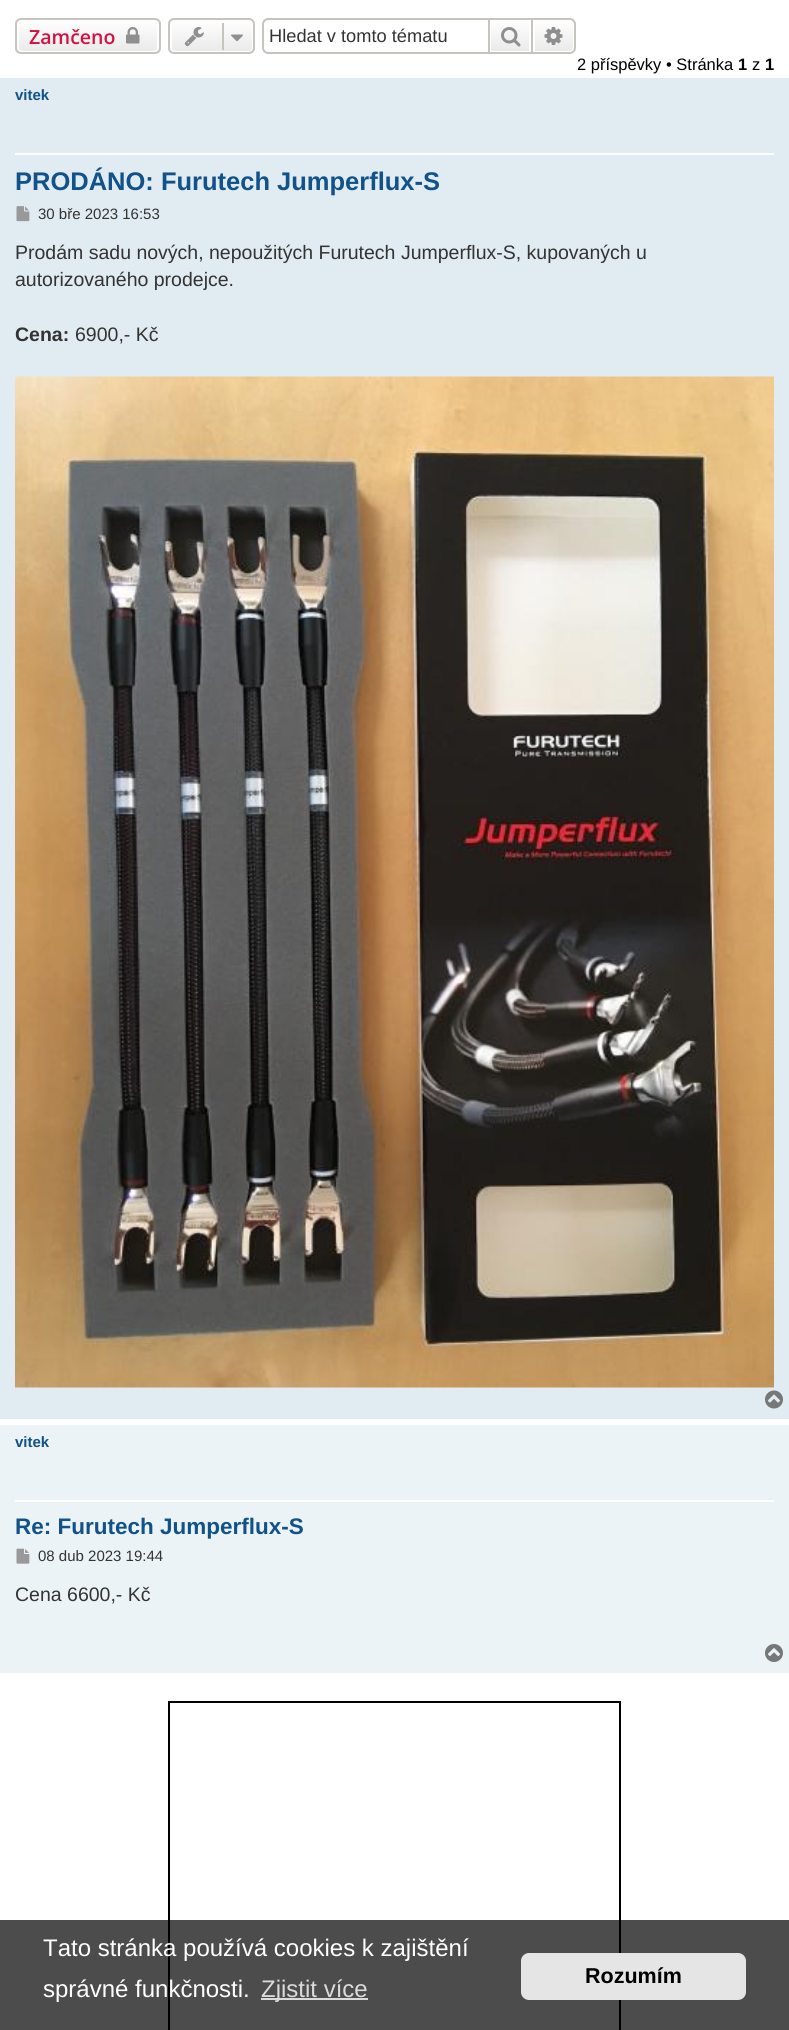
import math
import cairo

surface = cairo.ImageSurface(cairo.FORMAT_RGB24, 789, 2030)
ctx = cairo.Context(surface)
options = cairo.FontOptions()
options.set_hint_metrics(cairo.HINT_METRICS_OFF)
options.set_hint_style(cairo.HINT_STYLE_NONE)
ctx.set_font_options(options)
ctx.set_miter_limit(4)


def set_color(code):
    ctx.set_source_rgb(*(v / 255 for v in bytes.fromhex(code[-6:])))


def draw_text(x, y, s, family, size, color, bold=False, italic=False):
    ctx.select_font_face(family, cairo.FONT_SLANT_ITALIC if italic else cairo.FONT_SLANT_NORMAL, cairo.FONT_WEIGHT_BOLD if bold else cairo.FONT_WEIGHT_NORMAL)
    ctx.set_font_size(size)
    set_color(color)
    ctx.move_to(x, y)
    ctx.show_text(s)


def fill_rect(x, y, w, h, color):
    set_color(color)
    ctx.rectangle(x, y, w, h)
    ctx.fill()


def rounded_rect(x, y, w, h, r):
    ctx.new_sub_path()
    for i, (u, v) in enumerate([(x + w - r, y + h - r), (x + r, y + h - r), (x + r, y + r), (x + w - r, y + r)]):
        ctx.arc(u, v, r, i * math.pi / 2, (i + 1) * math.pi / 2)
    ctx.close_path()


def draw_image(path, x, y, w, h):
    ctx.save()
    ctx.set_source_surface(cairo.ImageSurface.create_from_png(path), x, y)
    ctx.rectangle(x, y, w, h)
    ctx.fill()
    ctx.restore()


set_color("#ffffff")
ctx.paint()
ctx.save()
rounded_rect(15, 18, 146, 36, 6)
ctx.clip()
gradient = cairo.LinearGradient(88, 19, 88, 53)
gradient.add_color_stop_rgba(0, 1, 1, 1, 1)
gradient.add_color_stop_rgba(1, 0.914, 0.914, 0.914, 1)
ctx.set_source(gradient)
ctx.rectangle(15, 20, 146, 33)
ctx.fill()
ctx.restore()
rounded_rect(18, 21, 140, 31, 4)
set_color("#ffffff")
ctx.stroke()
rounded_rect(16, 19, 144, 34, 5)
set_color("#c7c3bf")
ctx.stroke()
draw_text(29, 44, "Zamčeno", "Open Sans SemiBold", 19.5, "#d31141")
draw_image("assets/img1.png", 126, 27, 14, 17)
ctx.save()
rounded_rect(168, 18, 87, 36, 6)
ctx.clip()
gradient = cairo.LinearGradient(212, 19, 212, 53)
gradient.add_color_stop_rgba(0, 1, 1, 1, 1)
gradient.add_color_stop_rgba(1, 0.914, 0.914, 0.914, 1)
ctx.set_source(gradient)
ctx.rectangle(168, 20, 87, 33)
ctx.fill()
ctx.restore()
rounded_rect(171, 21, 82, 31, 4)
set_color("#ffffff")
ctx.stroke()
rounded_rect(169, 19, 85, 34, 5)
set_color("#c7c3bf")
ctx.stroke()
draw_image("assets/img2.png", 184, 27, 20, 20)
fill_rect(222, 23, 2, 27, "#c7c3bf")
draw_image("assets/img3.png", 231, 34, 12, 8)
ctx.set_fill_rule(cairo.FILL_RULE_EVEN_ODD)
ctx.new_path()
ctx.move_to(268, 18)
ctx.line_to(488, 18)
ctx.line_to(488, 54)
ctx.line_to(268, 54)
ctx.curve_to(265, 54, 262, 51, 262, 48)
ctx.line_to(262, 24)
ctx.curve_to(262, 21, 265, 18, 268, 18)
ctx.close_path()
ctx.move_to(268, 20)
ctx.line_to(488, 20)
ctx.line_to(488, 52)
ctx.line_to(268, 52)
ctx.curve_to(266, 52, 264, 50, 264, 48)
ctx.line_to(264, 24)
ctx.curve_to(264, 22, 266, 20, 268, 20)
ctx.close_path()
ctx.fill()
draw_text(269, 42, "Hledat v tomto tématu", "Liberation Sans", 18.25, "#333333")
gradient = cairo.LinearGradient(510, 19, 510, 53)
gradient.add_color_stop_rgba(0, 1, 1, 1, 1)
gradient.add_color_stop_rgba(1, 0.914, 0.914, 0.914, 1)
ctx.set_source(gradient)
ctx.rectangle(491, 23, 38, 28)
ctx.fill()
ctx.rectangle(489, 19, 43, 34)
set_color("#c7c3bf")
ctx.stroke()
draw_image("assets/img4.png", 501, 27, 20, 20)
gradient = cairo.LinearGradient(554, 19, 554, 53)
gradient.add_color_stop_rgba(0, 1, 1, 1, 1)
gradient.add_color_stop_rgba(1, 0.914, 0.914, 0.914, 1)
ctx.set_source(gradient)
ctx.new_path()
ctx.move_to(534, 21)
ctx.line_to(570, 21)
ctx.curve_to(572, 21, 574, 23, 574, 25)
ctx.line_to(574, 48)
ctx.curve_to(574, 50, 572, 52, 570, 52)
ctx.line_to(534, 52)
ctx.close_path()
ctx.fill_preserve()
set_color("#ffffff")
ctx.stroke()
set_color("#c7c3bf")
ctx.new_path()
ctx.move_to(532, 18)
ctx.line_to(570, 18)
ctx.curve_to(573, 18, 576, 21, 576, 24)
ctx.line_to(576, 48)
ctx.curve_to(576, 51, 573, 54, 570, 54)
ctx.line_to(532, 54)
ctx.close_path()
ctx.move_to(532, 20)
ctx.line_to(570, 20)
ctx.curve_to(572, 20, 574, 22, 574, 24)
ctx.line_to(574, 48)
ctx.curve_to(574, 50, 572, 52, 570, 52)
ctx.line_to(532, 52)
ctx.close_path()
ctx.fill()
draw_image("assets/img5.png", 544, 27, 19, 18)
draw_text(577, 70, "2 příspěvky • Stránka", "Liberation Sans", 16.5, "#000000")
draw_text(738, 70, "1", "Liberation Sans", 16.5, "#000000", bold=True)
draw_text(752, 70, "z", "Liberation Sans", 16.5, "#000000")
draw_text(765, 70, "1", "Liberation Sans", 16.5, "#000000", bold=True)
fill_rect(0, 78, 789, 1341, "#e1ebf2")
fill_rect(15, 153, 759, 2, "#ffffff")
draw_text(15, 100, "vitek", "Liberation Sans", 15, "#105289", bold=True)
draw_text(15, 190, "PRODÁNO: Furutech Jumperflux-S", "Liberation Sans", 25.5, "#105289", bold=True)
draw_image("assets/img6.png", 16, 206, 14, 16)
draw_text(38, 219, "30 bře 2023 16:53", "Liberation Sans", 15, "#333333")
draw_text(15, 259, "Prodám sadu nových, nepoužitých Furutech Jumperflux-S, kupovaných u", "Liberation Sans", 19.5, "#333333")
draw_text(15, 286, "autorizovaného prodejce.", "Liberation Sans", 19.5, "#333333")
draw_text(15, 341, "Cena:", "Liberation Sans", 19.5, "#333333", bold=True)
draw_text(75, 341, "6900,- Kč", "Liberation Sans", 19.5, "#333333")
draw_image("assets/img7.png", 15, 376, 759, 1012)
draw_image("assets/img8.png", 765, 1390, 18, 19)
fill_rect(0, 1425, 789, 248, "#ecf3f7")
fill_rect(15, 1500, 759, 2, "#ffffff")
draw_text(15, 1447, "vitek", "Liberation Sans", 15, "#105289", bold=True)
draw_text(15, 1534, "Re: Furutech Jumperflux-S", "Liberation Sans", 22.5, "#105289", bold=True)
draw_image("assets/img9.png", 16, 1548, 14, 16)
draw_text(38, 1561, "08 dub 2023 19:44", "Liberation Sans", 15, "#333333")
draw_text(15, 1601, "Cena 6600,- Kč", "Liberation Sans", 19.5, "#333333")
draw_image("assets/img10.png", 765, 1644, 18, 18)
ctx.rectangle(169, 1702, 451, 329)
set_color("#000000")
ctx.stroke()
ctx.set_source_rgba(0, 0, 0, 0.7)
ctx.rectangle(0, 1920, 789, 110)
ctx.fill()
draw_text(43, 1956, "Tato stránka používá cookies k zajištění", "Liberation Sans", 24, "#ffffff")
draw_text(43, 1997, "správné funkčnosti.", "Liberation Sans", 24, "#ffffff")
fill_rect(261, 1998, 107, 2, "#dbdbdb")
draw_text(261, 1997, "Zjistit více", "Liberation Sans", 24, "#dbdbdb")
set_color("#e5e5e5")
rounded_rect(521, 1953, 225, 47, 8)
ctx.fill()
draw_text(585, 1983, "Rozumím", "Liberation Sans", 21.5, "#000000", bold=True)
surface.write_to_png("output.png")
